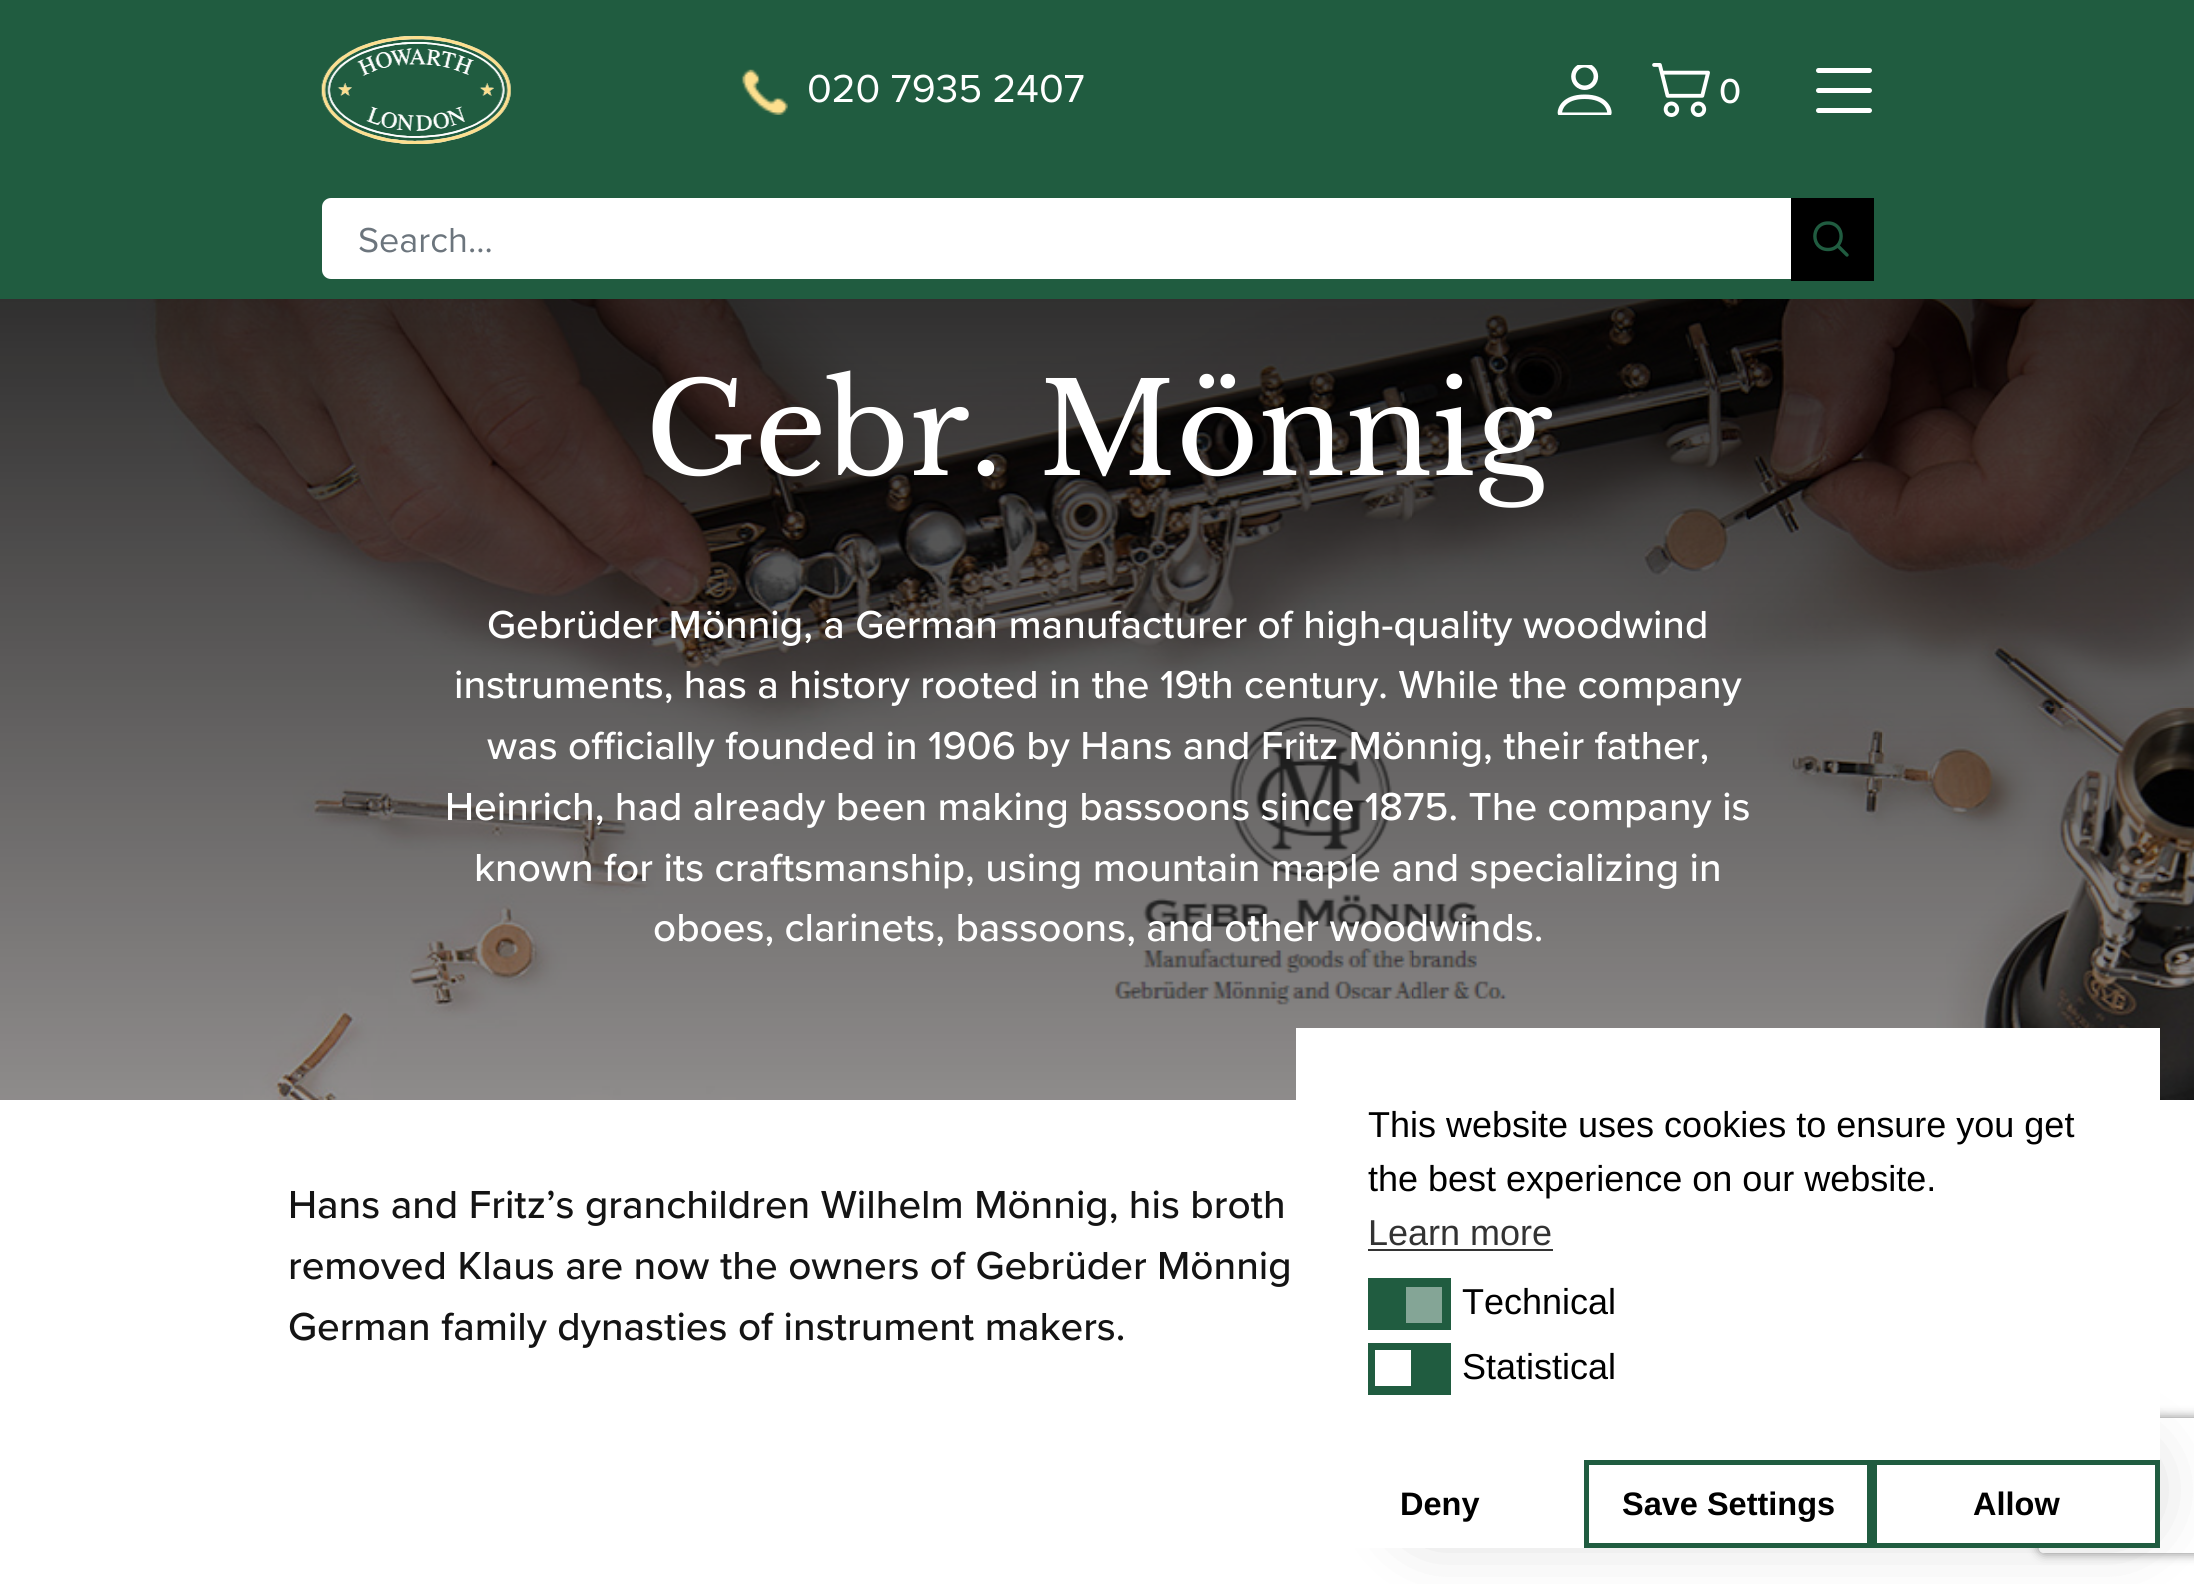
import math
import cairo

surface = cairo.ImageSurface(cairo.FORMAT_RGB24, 2194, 1584)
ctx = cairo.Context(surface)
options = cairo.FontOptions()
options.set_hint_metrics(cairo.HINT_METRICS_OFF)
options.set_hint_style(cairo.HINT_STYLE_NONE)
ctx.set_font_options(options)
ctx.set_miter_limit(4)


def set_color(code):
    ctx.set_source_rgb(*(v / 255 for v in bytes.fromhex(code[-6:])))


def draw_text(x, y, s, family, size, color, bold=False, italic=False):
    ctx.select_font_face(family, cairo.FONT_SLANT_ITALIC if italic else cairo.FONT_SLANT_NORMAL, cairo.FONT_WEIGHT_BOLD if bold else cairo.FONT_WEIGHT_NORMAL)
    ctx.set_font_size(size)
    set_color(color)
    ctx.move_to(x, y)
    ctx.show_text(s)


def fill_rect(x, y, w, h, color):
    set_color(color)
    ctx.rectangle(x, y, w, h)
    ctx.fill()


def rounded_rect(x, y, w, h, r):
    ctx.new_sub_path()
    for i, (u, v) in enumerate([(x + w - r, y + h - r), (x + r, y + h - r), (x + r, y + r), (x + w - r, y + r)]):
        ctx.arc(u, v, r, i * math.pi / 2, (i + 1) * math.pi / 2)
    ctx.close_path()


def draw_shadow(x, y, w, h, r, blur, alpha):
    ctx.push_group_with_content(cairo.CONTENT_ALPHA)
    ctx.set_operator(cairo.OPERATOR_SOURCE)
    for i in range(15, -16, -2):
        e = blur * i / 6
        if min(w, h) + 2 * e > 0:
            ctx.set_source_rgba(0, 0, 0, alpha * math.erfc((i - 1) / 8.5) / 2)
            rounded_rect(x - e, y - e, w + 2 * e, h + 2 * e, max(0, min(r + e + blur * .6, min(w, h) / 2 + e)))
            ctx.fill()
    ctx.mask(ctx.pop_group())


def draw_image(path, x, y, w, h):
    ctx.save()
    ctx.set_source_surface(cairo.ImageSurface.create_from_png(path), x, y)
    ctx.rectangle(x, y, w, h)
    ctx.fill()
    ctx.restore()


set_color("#ffffff")
ctx.paint()
fill_rect(0, 0, 2194, 299, "#205c40")
draw_image("assets/img1.png", 321, 36, 190, 108)
draw_image("assets/img2.png", 741, 69, 47, 46)
draw_text(807, 102, "020 7935 2407", "Proxima Nova", 40.5, "#ffffff")
draw_image("assets/img3.png", 1557, 65, 55, 50)
draw_image("assets/img4.png", 1652, 63, 58, 54)
draw_text(1719, 103, "0", "Proxima Nova Medium", 36, "#ffffff")
rounded_rect(1816, 68, 56, 5, 2.5)
ctx.fill()
rounded_rect(1816, 88, 56, 5, 2.5)
ctx.fill()
rounded_rect(1816, 108, 56, 5, 2.5)
ctx.fill()
ctx.new_path()
ctx.move_to(331, 198)
ctx.line_to(1791, 198)
ctx.line_to(1791, 279)
ctx.line_to(331, 279)
ctx.curve_to(326, 279, 322, 275, 322, 270)
ctx.line_to(322, 207)
ctx.curve_to(322, 202, 326, 198, 331, 198)
ctx.close_path()
ctx.fill()
draw_text(358, 252, "Search...", "Proxima Nova", 36, "#6c757d")
fill_rect(1791, 198, 83, 83, "#000000")
ctx.new_path()
ctx.move_to(1838.5, 246.5)
ctx.line_to(1847, 255)
ctx.move_to(1828, 249.5)
ctx.curve_to(1845.5, 249.5, 1845.5, 223, 1828, 223)
ctx.curve_to(1810.5, 223, 1810.5, 249.5, 1828, 249.5)
ctx.close_path()
set_color("#205c40")
ctx.set_line_width(3.4)
ctx.set_line_cap(cairo.LINE_CAP_ROUND)
ctx.set_line_join(cairo.LINE_JOIN_ROUND)
ctx.stroke()
draw_image("assets/img5.png", 0, 299, 2194, 801)
draw_text(645, 475, "Gebr. Mönnig", "Libre Baskerville", 126, "#ffffff")
draw_text(487, 638, "Gebrüder Mönnig, a German manufacturer of high-quality woodwind", "Proxima Nova Medium", 40.5, "#ffffff")
draw_text(454, 698, "instruments, has a history rooted in the 19th century. While the company", "Proxima Nova Medium", 40.5, "#ffffff")
draw_text(487, 759, "was officially founded in 1906 by Hans and Fritz Mönnig, their father,", "Proxima Nova Medium", 40.5, "#ffffff")
draw_text(445, 820, "Heinrich, had already been making bassoons since 1875. The company is", "Proxima Nova Medium", 40.5, "#ffffff")
draw_text(474, 881, "known for its craftsmanship, using mountain maple and specializing in", "Proxima Nova Medium", 40.5, "#ffffff")
draw_text(653, 941, "oboes, clarinets, bassoons, and other woodwinds.", "Proxima Nova Medium", 40.5, "#ffffff")
draw_text(288, 1218, "Hans and Fritz’s granchildren Wilhelm Mönnig, his broth", "Proxima Nova Medium", 40.5, "#141414")
draw_text(288, 1279, "removed Klaus are now the owners of Gebrüder Mönnig", "Proxima Nova Medium", 40.5, "#141414")
draw_text(288, 1340, "German family dynasties of instrument makers.", "Proxima Nova Medium", 40.5, "#141414")
set_color("#000000")
draw_shadow(1404, 1445, 747, 90, 45, 36, 0.16)
ctx.save()
ctx.set_fill_rule(cairo.FILL_RULE_EVEN_ODD)
ctx.new_path()
ctx.move_to(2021, 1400)
ctx.line_to(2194, 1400)
ctx.line_to(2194, 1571)
ctx.line_to(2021, 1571)
ctx.close_path()
ctx.move_to(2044, 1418)
ctx.line_to(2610, 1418)
ctx.curve_to(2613, 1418, 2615, 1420, 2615, 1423)
ctx.line_to(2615, 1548)
ctx.curve_to(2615, 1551, 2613, 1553, 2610, 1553)
ctx.line_to(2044, 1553)
ctx.curve_to(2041, 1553, 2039, 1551, 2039, 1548)
ctx.line_to(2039, 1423)
ctx.curve_to(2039, 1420, 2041, 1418, 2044, 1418)
ctx.close_path()
ctx.clip()
set_color("#808080")
draw_shadow(2039, 1418, 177, 135, 5, 5.5, 1)
ctx.restore()
fill_rect(1296, 1028, 864, 520, "#ffffff")
draw_text(1368, 1137, "This website uses cookies to ensure you get", "Liberation Sans", 36, "#000000")
draw_text(1368, 1191, "the best experience on our website.", "Liberation Sans", 36, "#000000")
draw_text(1368, 1245, "Learn more", "Liberation Sans", 36, "#333333")
fill_rect(1368, 1249, 185, 2, "#333333")
fill_rect(1368, 1278, 83, 52, "#205c40")
fill_rect(1406, 1287, 36, 36, "#84a596")
draw_text(1462, 1314, "Technical", "Liberation Sans", 36, "#000000")
fill_rect(1368, 1343, 83, 52, "#205c40")
fill_rect(1375, 1350, 36, 36, "#ffffff")
draw_text(1462, 1379, "Statistical", "Liberation Sans", 36, "#000000")
draw_text(1400, 1515, "Deny", "Liberation Sans", 32.5, "#000000", bold=True)
ctx.rectangle(1586.5, 1462.5, 283, 83)
set_color("#205c40")
ctx.set_line_width(5)
ctx.set_line_cap(cairo.LINE_CAP_BUTT)
ctx.set_line_join(cairo.LINE_JOIN_MITER)
ctx.stroke()
draw_text(1622, 1515, "Save Settings", "Liberation Sans", 32.5, "#000000", bold=True)
ctx.rectangle(1874.5, 1462.5, 283, 83)
set_color("#205c40")
ctx.stroke()
draw_text(1973, 1515, "Allow", "Liberation Sans", 32.5, "#000000", bold=True)
surface.write_to_png("output.png")
